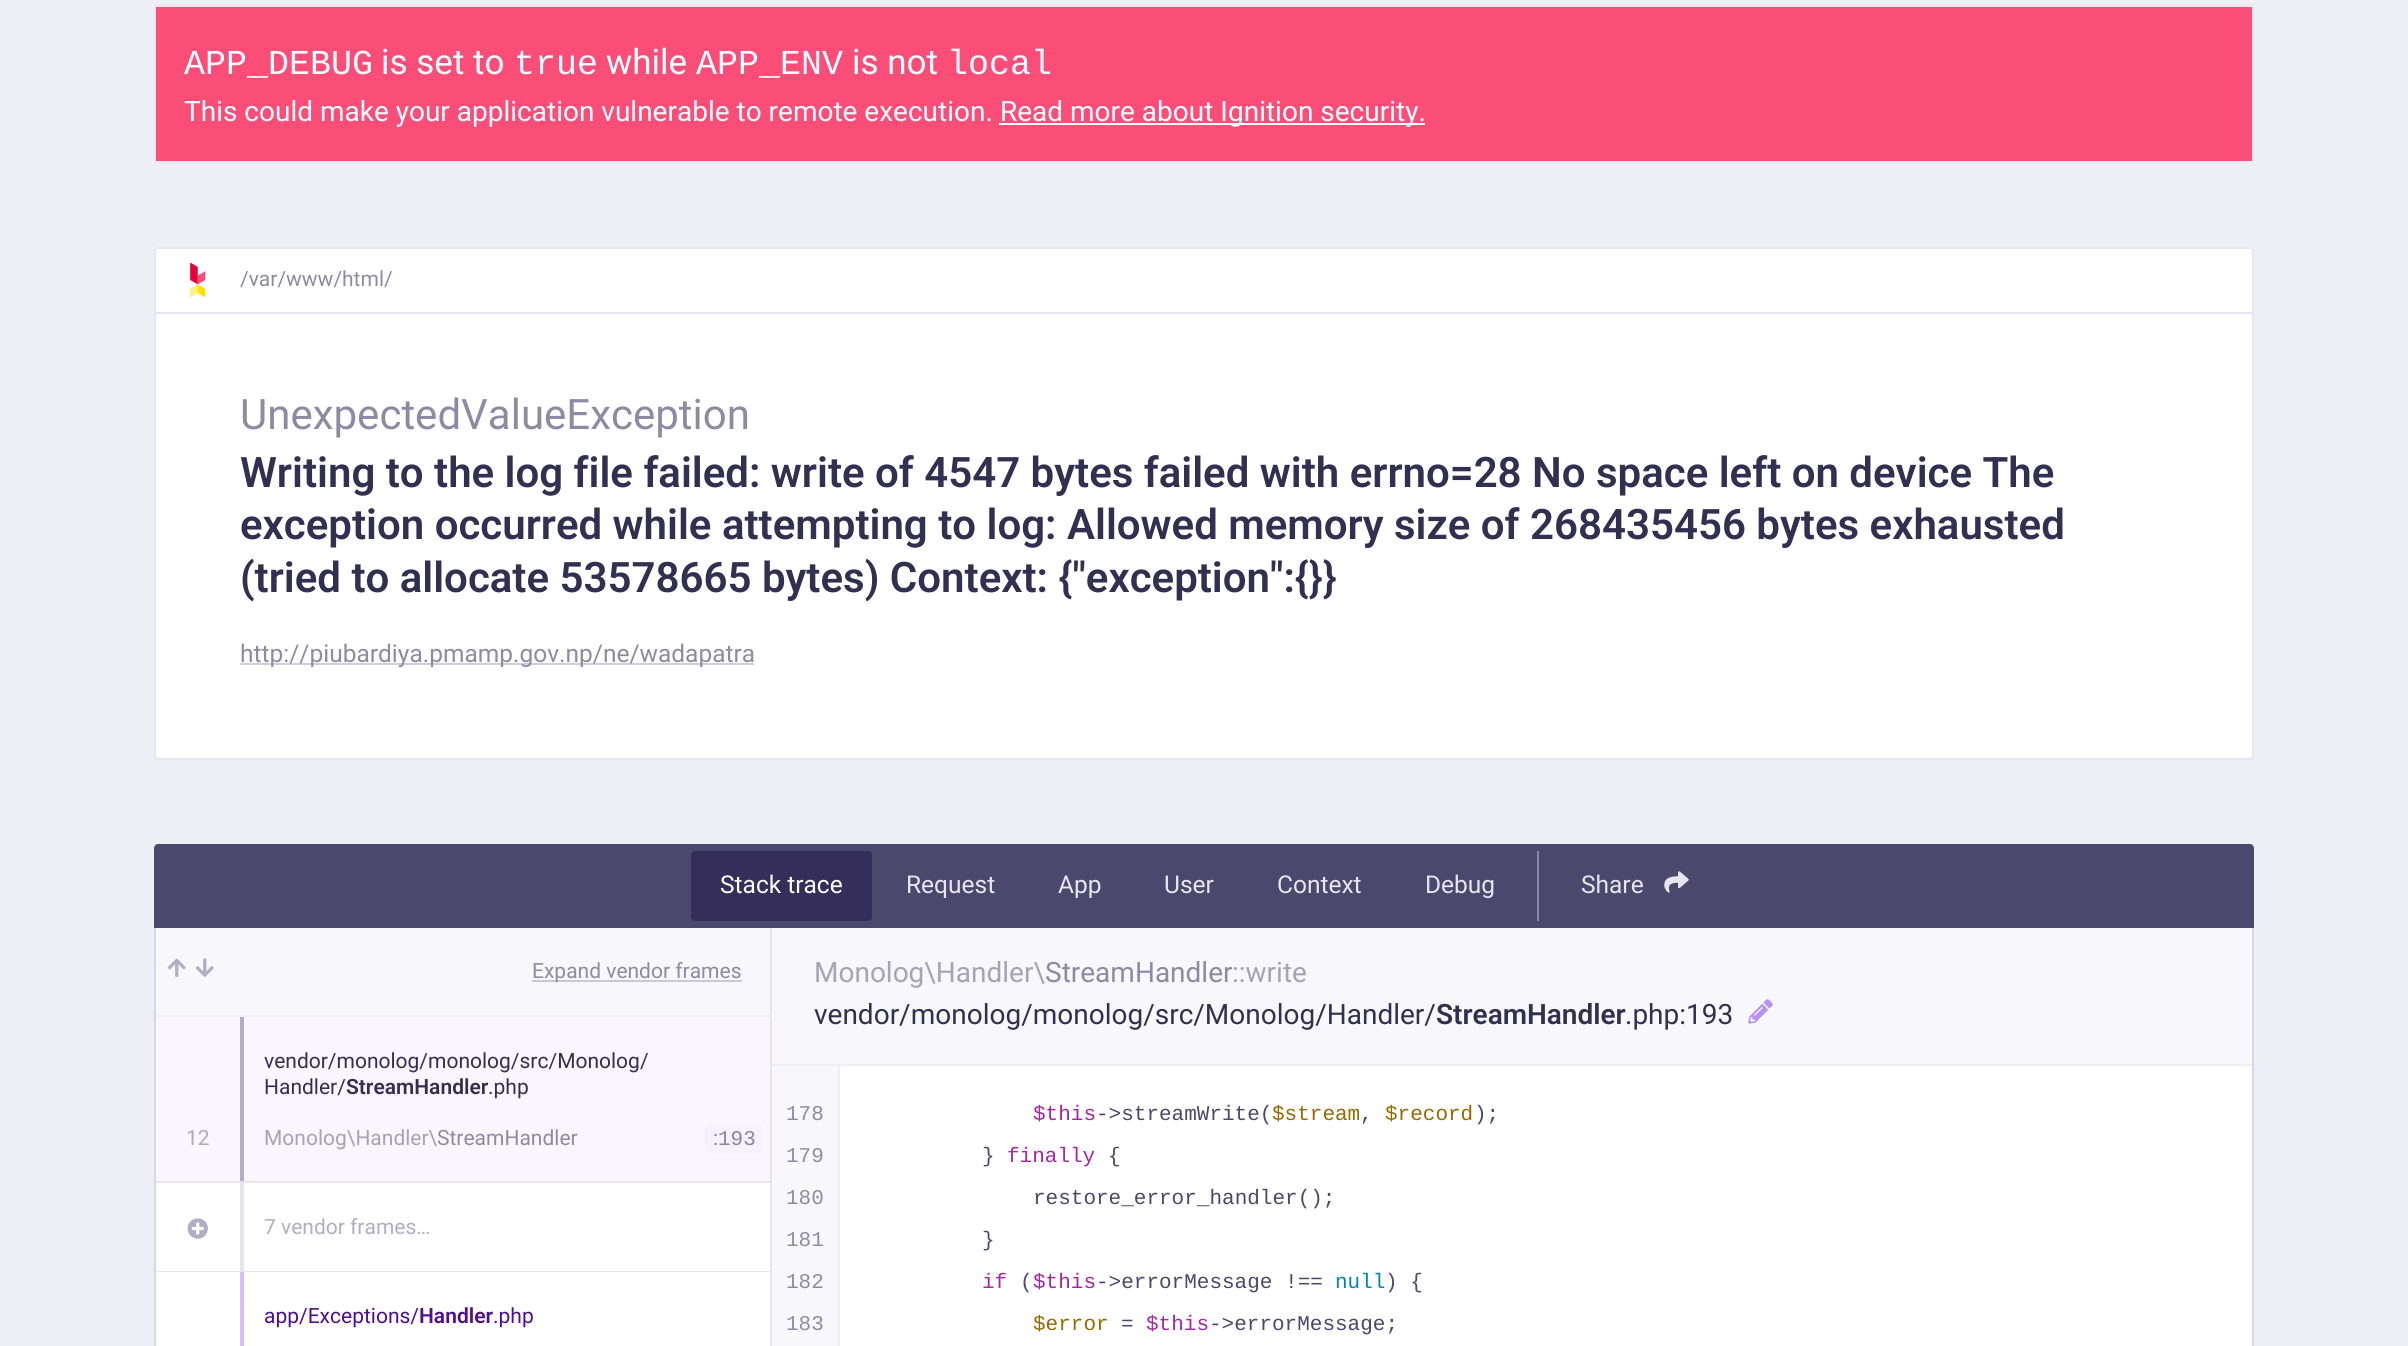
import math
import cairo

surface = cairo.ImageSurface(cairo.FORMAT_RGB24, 2408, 1346)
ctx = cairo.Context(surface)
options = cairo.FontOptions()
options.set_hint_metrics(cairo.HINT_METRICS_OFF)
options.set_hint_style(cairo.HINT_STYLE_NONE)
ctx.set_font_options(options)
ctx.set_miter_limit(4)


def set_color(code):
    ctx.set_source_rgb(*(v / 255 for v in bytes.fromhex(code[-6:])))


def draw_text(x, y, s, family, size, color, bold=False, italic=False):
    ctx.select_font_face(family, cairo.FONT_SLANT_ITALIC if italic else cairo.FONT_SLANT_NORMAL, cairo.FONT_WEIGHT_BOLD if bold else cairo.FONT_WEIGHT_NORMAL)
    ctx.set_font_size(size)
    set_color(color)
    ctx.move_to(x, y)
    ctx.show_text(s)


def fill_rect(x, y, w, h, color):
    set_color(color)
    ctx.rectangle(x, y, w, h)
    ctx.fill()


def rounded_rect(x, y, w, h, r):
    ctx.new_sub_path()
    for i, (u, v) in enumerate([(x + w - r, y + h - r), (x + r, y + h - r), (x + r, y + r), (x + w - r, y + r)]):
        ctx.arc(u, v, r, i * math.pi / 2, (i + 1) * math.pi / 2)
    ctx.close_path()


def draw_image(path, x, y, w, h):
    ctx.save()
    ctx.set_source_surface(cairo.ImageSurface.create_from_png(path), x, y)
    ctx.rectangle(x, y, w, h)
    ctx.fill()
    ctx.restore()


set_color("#eeeef5")
ctx.paint()
set_color("#ffffff")
rounded_rect(154, 5, 2100, 158, 4)
ctx.fill()
rounded_rect(155, 6, 2098, 156, 3)
ctx.set_source_rgba(0.098, 0, 0.392, 0.1)
ctx.stroke()
fill_rect(156, 7, 2096, 154, "#fa4e79")
draw_text(184, 74, "APP_DEBUG", "Liberation Mono", 35, "#ffffff")
draw_text(381, 74, "is set to", "Roboto", 35, "#ffffff")
draw_text(514, 74, "true", "Liberation Mono", 35, "#ffffff")
draw_text(606, 74, "while", "Roboto", 35, "#ffffff")
draw_text(696, 74, "APP_ENV", "Liberation Mono", 35, "#ffffff")
draw_text(852, 74, "is not", "Roboto", 35, "#ffffff")
draw_text(947, 74, "local", "Liberation Mono", 35, "#ffffff")
draw_text(184, 121, "This could make your application vulnerable to remote execution.", "Roboto", 28, "#ffffff")
fill_rect(999, 123, 426, 2, "#ffffff")
draw_text(1000, 121, "Read more about Ignition security.", "Roboto", 28, "#ffffff")
rounded_rect(154, 247, 2100, 513, 4)
ctx.fill()
rounded_rect(155, 248, 2098, 511, 3)
ctx.set_source_rgba(0.098, 0, 0.392, 0.1)
ctx.stroke()
fill_rect(156, 312, 2096, 2, "#e8e6f0")
draw_image("assets/img1.png", 190, 263, 16, 35)
draw_text(240, 286, "/var/www/html/", "Roboto", 21, "#8f8aa3")
draw_text(240, 429, "UnexpectedValueException", "Roboto", 42, "#8f8aa3")
draw_text(240, 487, "Writing to the log file failed: write of 4547 bytes failed with errno=28 No space left on device The", "Roboto SemiBold", 42, "#332f51")
draw_text(240, 539, "exception occurred while attempting to log: Allowed memory size of 268435456 bytes exhausted", "Roboto SemiBold", 42, "#332f51")
draw_text(240, 592, "(tried to allocate 53578665 bytes) Context: {\"exception\":{}}", "Roboto SemiBold", 42, "#332f51")
fill_rect(240, 663, 514, 2, "#d0cce0")
draw_text(240, 662, "http://piubardiya.pmamp.gov.np/ne/wadapatra", "Roboto", 24.5, "#8f8aa3")
set_color("#4b476d")
ctx.new_path()
ctx.move_to(158, 844)
ctx.line_to(2250, 844)
ctx.curve_to(2252, 844, 2254, 846, 2254, 848)
ctx.line_to(2254, 928)
ctx.line_to(154, 928)
ctx.line_to(154, 848)
ctx.curve_to(154, 846, 156, 844, 158, 844)
ctx.close_path()
ctx.fill()
set_color("#352e5a")
rounded_rect(691, 851, 181, 70, 4)
ctx.fill()
draw_text(720, 893, "Stack trace", "Roboto", 24.5, "#ffffff")
draw_text(906, 893, "Request", "Roboto", 24.5, "#e8e5ef")
draw_text(1058, 893, "App", "Roboto", 24.5, "#e8e5ef")
draw_text(1164, 893, "User", "Roboto", 24.5, "#e8e5ef")
draw_text(1277, 893, "Context", "Roboto", 24.5, "#e8e5ef")
draw_text(1425, 893, "Debug", "Roboto", 24.5, "#e8e5ef")
fill_rect(1537, 851, 2, 70, "#8e89a2")
draw_text(1581, 893, "Share", "Roboto", 24.5, "#e8e5ef")
draw_image("assets/img2.png", 1664, 871, 25, 22)
set_color("#d9d6e7")
ctx.new_path()
ctx.move_to(2254, 928)
ctx.line_to(2254, 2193)
ctx.line_to(2252, 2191)
ctx.line_to(2252, 928)
ctx.close_path()
ctx.fill()
ctx.new_path()
ctx.move_to(154, 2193)
ctx.line_to(154, 928)
ctx.line_to(156, 928)
ctx.line_to(156, 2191)
ctx.close_path()
ctx.fill()
fill_rect(156, 1183, 614, 88, "#ffffff")
fill_rect(770, 928, 2, 418, "#e8e5ef")
fill_rect(156, 928, 614, 87, "#f7f7fc")
draw_image("assets/img3.png", 167, 958, 19, 19)
draw_image("assets/img4.png", 195, 958, 19, 19)
fill_rect(532, 980, 210, 2, "#cac6de")
draw_text(532, 978, "Expand vendor frames", "Roboto", 21, "#8f8aa3")
fill_rect(156, 1181, 614, 2, "#e8e5ef")
fill_rect(156, 1017, 614, 164, "#fbf5ff")
draw_text(186, 1145, "12", "Roboto", 21, "#aea6c5")
fill_rect(240, 1017, 4, 164, "#b0adc5")
draw_text(264, 1068, "vendor/monolog/monolog/src/Monolog/", "Roboto", 21, "#332f51")
draw_text(264, 1094, "Handler/", "Roboto", 21, "#332f51")
draw_text(346, 1094, "StreamHandler", "Roboto SemiBold", 21, "#332f51")
draw_text(488, 1094, ".php", "Roboto", 21, "#332f51")
draw_text(264, 1145, "Monolog\\Handler\\", "Roboto", 21, "#a6a2b8")
draw_text(437, 1145, "StreamHandler", "Roboto", 21, "#8f8aa3")
set_color("#f7f1fd")
rounded_rect(705, 1125, 58, 28, 4)
ctx.fill()
draw_text(713, 1145, ":", "Roboto", 21, "#8b83a2")
draw_text(718, 1145, "193", "Liberation Mono", 21, "#8b83a2")
fill_rect(156, 1271, 614, 1, "#e8e5ef")
draw_image("assets/img5.png", 187, 1218, 21, 21)
fill_rect(240, 1183, 4, 88, "#e8e5ef")
draw_text(264, 1234, "7 vendor frames…", "Roboto", 21, "#b0adc5")
fill_rect(156, 1272, 614, 74, "#ffffff")
fill_rect(240, 1272, 4, 74, "#d6bcfa")
draw_text(264, 1323, "app/Exceptions/", "Roboto", 21, "#4f0f8f")
draw_text(419, 1323, "Handler", "Roboto SemiBold", 21, "#4f0f8f")
draw_text(493, 1323, ".php", "Roboto", 21, "#4f0f8f")
fill_rect(772, 928, 1480, 136, "#f7f7fc")
draw_text(814, 982, "Monolog\\Handler\\", "Roboto", 28, "#a6a2b8")
draw_text(1045, 982, "StreamHandler", "Roboto", 28, "#8f8aa3")
draw_text(1232, 982, "::write", "Roboto", 28, "#a6a2b8")
draw_text(814, 1024, "vendor/monolog/monolog/src/Monolog/Handler/", "Roboto", 28, "#332f51")
draw_text(1436, 1024, "StreamHandler", "Roboto SemiBold", 28, "#332f51")
draw_text(1625, 1024, ".php:193", "Roboto", 28, "#332f51")
draw_image("assets/img6.png", 1748, 999, 25, 25)
fill_rect(840, 1066, 1412, 280, "#ffffff")
fill_rect(772, 1066, 66, 280, "#f7f7fc")
draw_text(786, 1120, "178", "Liberation Mono", 21, "#8f8aa3")
draw_text(786, 1162, "179", "Liberation Mono", 21, "#8f8aa3")
draw_text(786, 1204, "180", "Liberation Mono", 21, "#8f8aa3")
draw_text(786, 1246, "181", "Liberation Mono", 21, "#8f8aa3")
draw_text(786, 1288, "182", "Liberation Mono", 21, "#8f8aa3")
draw_text(786, 1330, "183", "Liberation Mono", 21, "#8f8aa3")
draw_text(1033, 1120, "$this", "Liberation Mono", 21, "#a626a4")
draw_text(1096, 1120, "->streamWrite(", "Liberation Mono", 21, "#4b476d")
draw_text(1272, 1120, "$stream", "Liberation Mono", 21, "#986801")
draw_text(1360, 1120, ",", "Liberation Mono", 21, "#4b476d")
draw_text(1385, 1120, "$record", "Liberation Mono", 21, "#986801")
draw_text(1474, 1120, ");", "Liberation Mono", 21, "#4b476d")
draw_text(982, 1162, "}", "Liberation Mono", 21, "#4b476d")
draw_text(1007, 1162, "finally", "Liberation Mono", 21, "#a626a4")
draw_text(1108, 1162, "{", "Liberation Mono", 21, "#4b476d")
draw_text(1033, 1204, "restore_error_handler();", "Liberation Mono", 21, "#4b476d")
draw_text(982, 1246, "}", "Liberation Mono", 21, "#4b476d")
draw_text(982, 1288, "if", "Liberation Mono", 21, "#a626a4")
draw_text(1020, 1288, "(", "Liberation Mono", 21, "#4b476d")
draw_text(1033, 1288, "$this", "Liberation Mono", 21, "#a626a4")
draw_text(1096, 1288, "->errorMessage !==", "Liberation Mono", 21, "#4b476d")
draw_text(1335, 1288, "null", "Liberation Mono", 21, "#0184bb")
draw_text(1385, 1288, ") {", "Liberation Mono", 21, "#4b476d")
draw_text(1033, 1330, "$error", "Liberation Mono", 21, "#986801")
draw_text(1121, 1330, "=", "Liberation Mono", 21, "#4b476d")
draw_text(1146, 1330, "$this", "Liberation Mono", 21, "#a626a4")
draw_text(1209, 1330, "->errorMessage;", "Liberation Mono", 21, "#4b476d")
surface.write_to_png("output.png")
